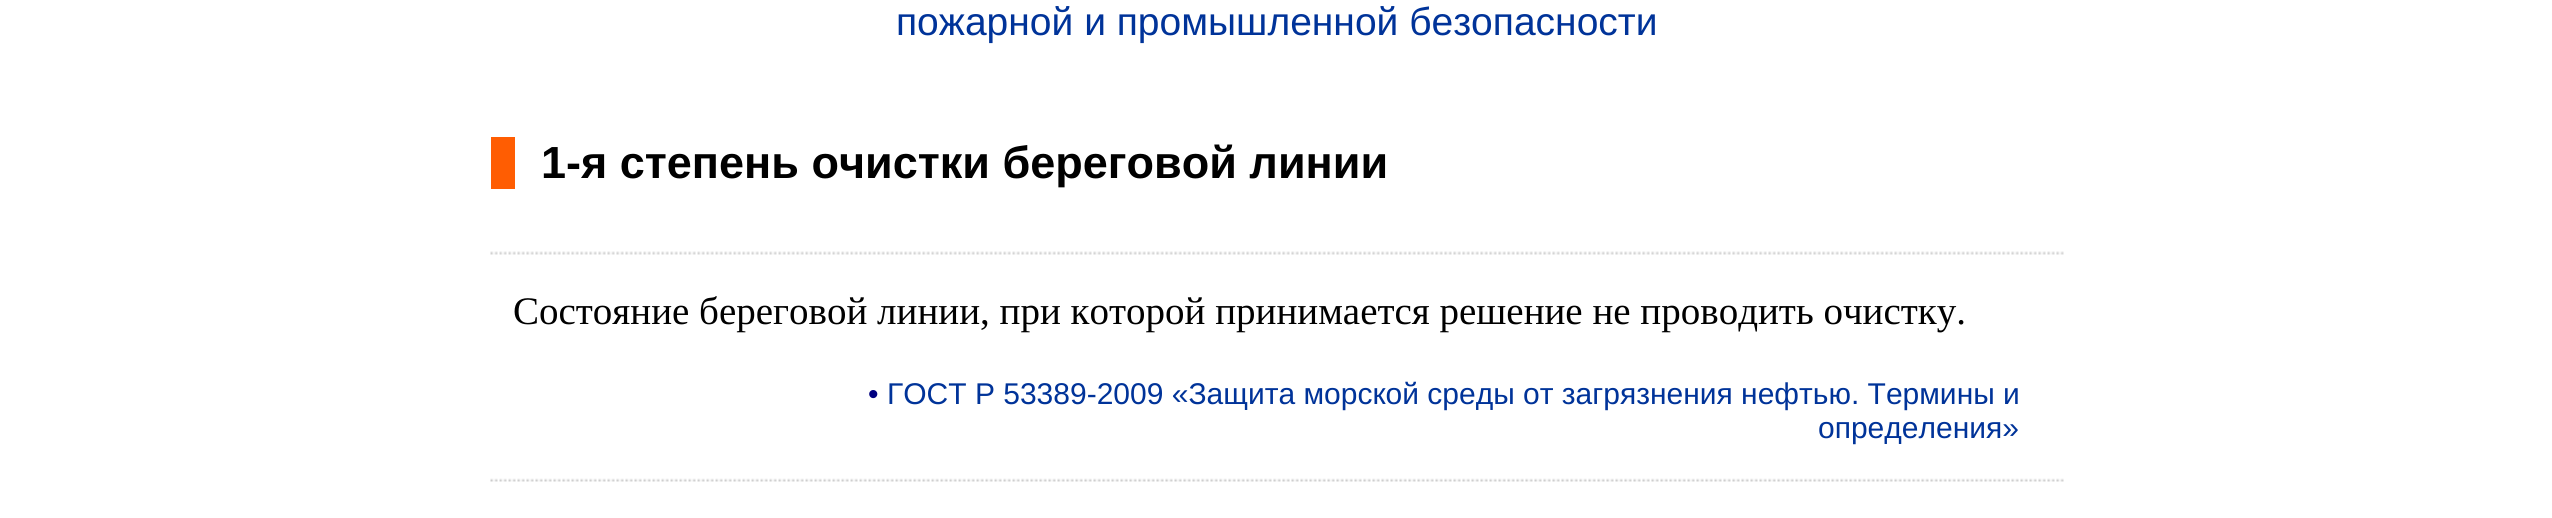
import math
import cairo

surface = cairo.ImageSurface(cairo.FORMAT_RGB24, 2552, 518)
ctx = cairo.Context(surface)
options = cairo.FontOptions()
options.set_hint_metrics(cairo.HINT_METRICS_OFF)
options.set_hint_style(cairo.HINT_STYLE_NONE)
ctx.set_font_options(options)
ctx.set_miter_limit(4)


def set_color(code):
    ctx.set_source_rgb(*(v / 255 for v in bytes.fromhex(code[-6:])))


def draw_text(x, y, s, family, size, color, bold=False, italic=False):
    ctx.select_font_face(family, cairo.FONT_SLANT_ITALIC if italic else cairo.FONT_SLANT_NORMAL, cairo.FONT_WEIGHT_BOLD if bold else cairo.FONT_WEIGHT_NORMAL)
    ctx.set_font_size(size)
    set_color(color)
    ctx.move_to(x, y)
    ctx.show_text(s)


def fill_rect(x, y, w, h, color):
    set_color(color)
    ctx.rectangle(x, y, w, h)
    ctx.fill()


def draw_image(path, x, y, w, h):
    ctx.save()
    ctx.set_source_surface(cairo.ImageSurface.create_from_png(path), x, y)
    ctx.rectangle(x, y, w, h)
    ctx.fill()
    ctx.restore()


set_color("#ffffff")
ctx.paint()
draw_text(896, 35, "пожарной и промышленной безопасности", "Liberation Sans", 39, "#003399")
fill_rect(491, 137, 24, 52, "#ff5d02")
draw_text(541, 178, "1-я степень очистки береговой линии", "Liberation Sans", 45, "#000000", bold=True)
draw_image("assets/img1.png", 490, 251, 1574, 4)
draw_text(513, 324, "Состояние береговой линии, при которой принимается решение не проводить очистку.", "Liberation Serif", 39, "#000000")
draw_text(868, 404, "•", "Liberation Sans", 30, "#000080")
draw_text(887, 404, "ГОСТ Р 53389-2009 «Защита морской среды от загрязнения нефтью. Термины и", "Liberation Sans", 30, "#003399")
draw_text(1818, 438, "определения»", "Liberation Sans", 30, "#003399")
draw_image("assets/img2.png", 490, 478, 1574, 4)
surface.write_to_png("output.png")
